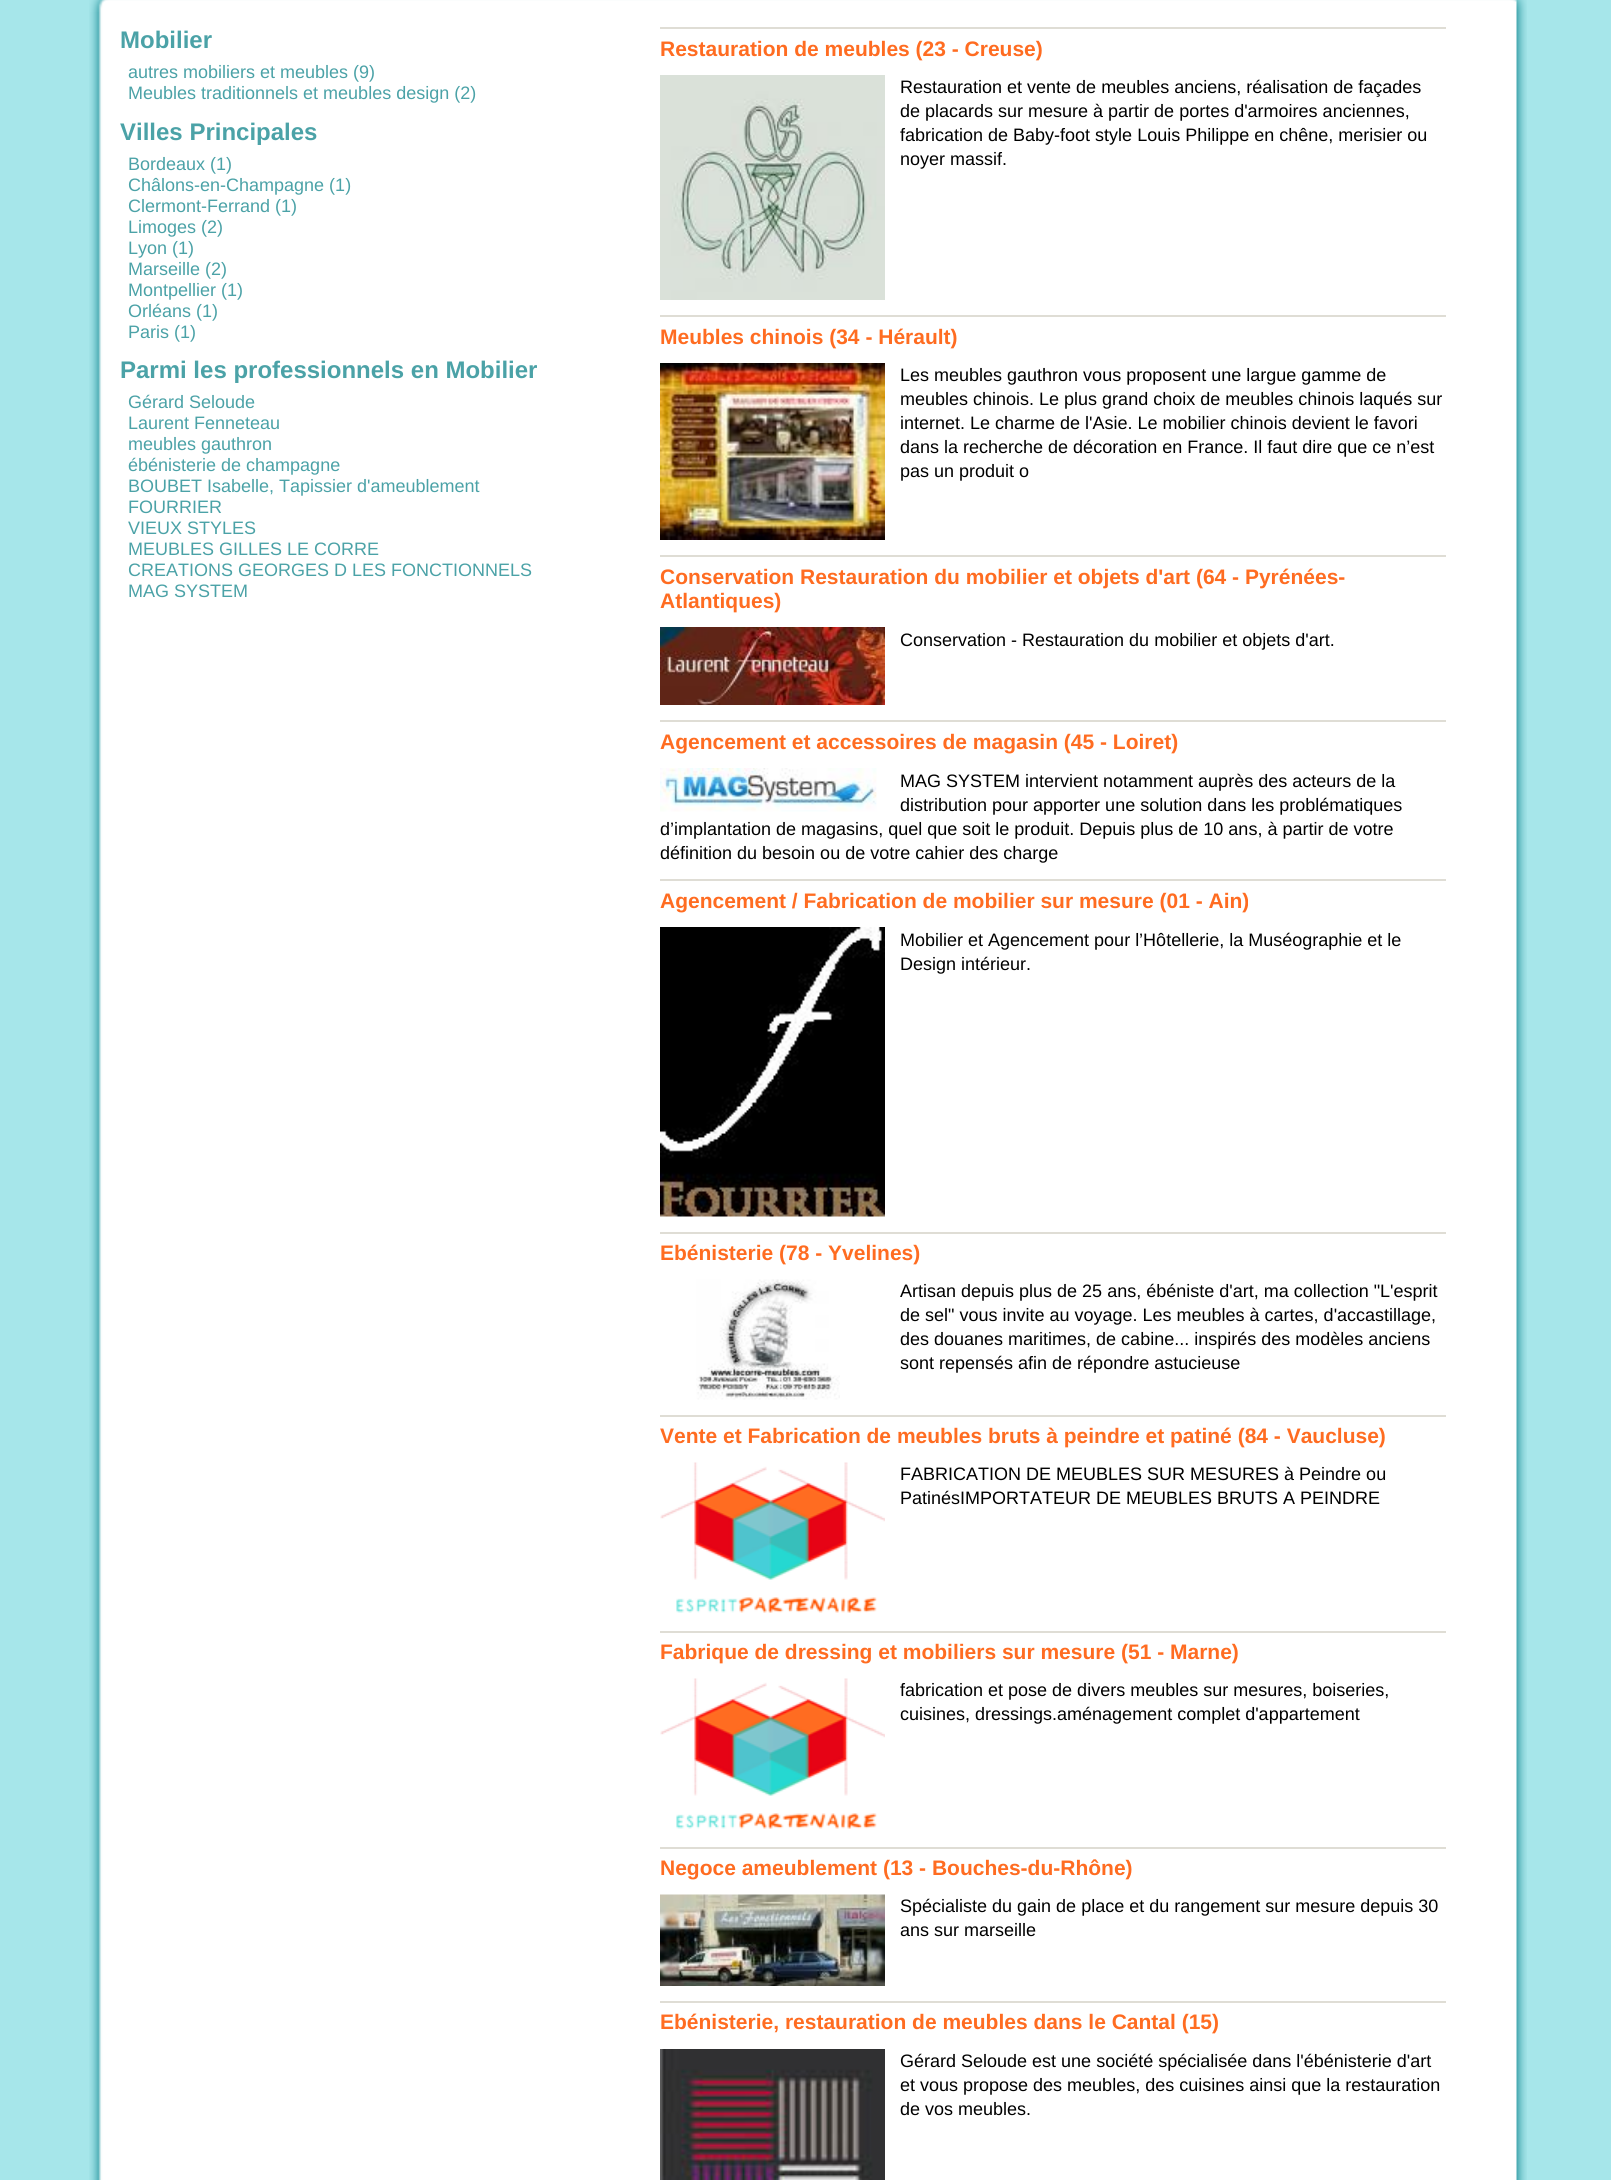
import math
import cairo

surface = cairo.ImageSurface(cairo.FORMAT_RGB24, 1611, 2180)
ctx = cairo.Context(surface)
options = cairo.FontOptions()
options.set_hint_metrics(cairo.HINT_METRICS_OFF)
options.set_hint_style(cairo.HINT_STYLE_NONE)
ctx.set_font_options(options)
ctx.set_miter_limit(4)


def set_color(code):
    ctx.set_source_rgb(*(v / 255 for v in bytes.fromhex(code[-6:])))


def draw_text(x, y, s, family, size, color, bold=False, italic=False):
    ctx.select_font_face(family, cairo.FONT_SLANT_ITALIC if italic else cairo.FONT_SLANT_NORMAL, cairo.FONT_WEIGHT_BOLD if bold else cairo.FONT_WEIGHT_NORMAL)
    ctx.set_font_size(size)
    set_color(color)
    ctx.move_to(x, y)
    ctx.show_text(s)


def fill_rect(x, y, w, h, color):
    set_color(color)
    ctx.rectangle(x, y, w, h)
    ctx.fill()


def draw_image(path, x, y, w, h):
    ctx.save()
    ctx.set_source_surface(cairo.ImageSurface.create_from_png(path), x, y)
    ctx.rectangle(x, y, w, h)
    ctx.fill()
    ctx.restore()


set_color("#a6e6ea")
ctx.paint()
draw_image("assets/img1.png", 89, 0, 1438, 12)
draw_image("assets/img2.png", 89, 12, 1438, 2168)
draw_text(120, 48, "Mobilier", "Liberation Sans", 24, "#4ba2a7", bold=True)
draw_text(128, 78, "autres mobiliers et meubles (9)", "Liberation Sans", 18, "#4ba2a7")
draw_text(128, 99, "Meubles traditionnels et meubles design (2)", "Liberation Sans", 18, "#4ba2a7")
draw_text(120, 140, "Villes Principales", "Liberation Sans", 24, "#4ba2a7", bold=True)
draw_text(128, 170, "Bordeaux (1)", "Liberation Sans", 18, "#4ba2a7")
draw_text(128, 191, "Châlons-en-Champagne (1)", "Liberation Sans", 18, "#4ba2a7")
draw_text(128, 212, "Clermont-Ferrand (1)", "Liberation Sans", 18, "#4ba2a7")
draw_text(128, 233, "Limoges (2)", "Liberation Sans", 18, "#4ba2a7")
draw_text(128, 254, "Lyon (1)", "Liberation Sans", 18, "#4ba2a7")
draw_text(128, 275, "Marseille (2)", "Liberation Sans", 18, "#4ba2a7")
draw_text(128, 296, "Montpellier (1)", "Liberation Sans", 18, "#4ba2a7")
draw_text(128, 317, "Orléans (1)", "Liberation Sans", 18, "#4ba2a7")
draw_text(128, 338, "Paris (1)", "Liberation Sans", 18, "#4ba2a7")
draw_text(120, 378, "Parmi les professionnels en Mobilier", "Liberation Sans", 24, "#4ba2a7", bold=True)
draw_text(128, 408, "Gérard Seloude", "Liberation Sans", 18, "#4ba2a7")
draw_text(128, 429, "Laurent Fenneteau", "Liberation Sans", 18, "#4ba2a7")
draw_text(128, 450, "meubles gauthron", "Liberation Sans", 18, "#4ba2a7")
draw_text(128, 471, "ébénisterie de champagne", "Liberation Sans", 18, "#4ba2a7")
draw_text(128, 492, "BOUBET Isabelle, Tapissier d'ameublement", "Liberation Sans", 18, "#4ba2a7")
draw_text(128, 513, "FOURRIER", "Liberation Sans", 18, "#4ba2a7")
draw_text(128, 534, "VIEUX STYLES", "Liberation Sans", 18, "#4ba2a7")
draw_text(128, 555, "MEUBLES GILLES LE CORRE", "Liberation Sans", 18, "#4ba2a7")
draw_text(128, 576, "CREATIONS GEORGES D LES FONCTIONNELS", "Liberation Sans", 18, "#4ba2a7")
draw_text(128, 597, "MAG SYSTEM", "Liberation Sans", 18, "#4ba2a7")
fill_rect(660, 27, 786, 2, "#dfddd5")
draw_text(660, 56, "Restauration de meubles (23 - Creuse)", "Liberation Sans", 21, "#ff6c21", bold=True)
draw_image("assets/img3.png", 660, 75, 225, 225)
draw_text(900, 93, "Restauration et vente de meubles anciens, réalisation de façades", "Liberation Sans", 18, "#000000")
draw_text(900, 117, "de placards sur mesure à partir de portes d'armoires anciennes,", "Liberation Sans", 18, "#000000")
draw_text(900, 141, "fabrication de Baby-foot style Louis Philippe en chêne, merisier ou", "Liberation Sans", 18, "#000000")
draw_text(900, 165, "noyer massif.", "Liberation Sans", 18, "#000000")
fill_rect(660, 315, 786, 2, "#dfddd5")
draw_text(660, 344, "Meubles chinois (34 - Hérault)", "Liberation Sans", 21, "#ff6c21", bold=True)
draw_image("assets/img4.png", 660, 363, 225, 177)
draw_text(900, 381, "Les meubles gauthron vous proposent une largue gamme de", "Liberation Sans", 18, "#000000")
draw_text(900, 405, "meubles chinois. Le plus grand choix de meubles chinois laqués sur", "Liberation Sans", 18, "#000000")
draw_text(900, 429, "internet. Le charme de l'Asie. Le mobilier chinois devient le favori", "Liberation Sans", 18, "#000000")
draw_text(900, 453, "dans la recherche de décoration en France. Il faut dire que ce n’est", "Liberation Sans", 18, "#000000")
draw_text(900, 477, "pas un produit o", "Liberation Sans", 18, "#000000")
fill_rect(660, 555, 786, 2, "#dfddd5")
draw_text(660, 584, "Conservation Restauration du mobilier et objets d'art (64 - Pyrénées-", "Liberation Sans", 21, "#ff6c21", bold=True)
draw_text(660, 608, "Atlantiques)", "Liberation Sans", 21, "#ff6c21", bold=True)
draw_image("assets/img5.png", 660, 627, 225, 78)
draw_text(900, 646, "Conservation - Restauration du mobilier et objets d'art.", "Liberation Sans", 18, "#000000")
fill_rect(660, 720, 786, 2, "#dfddd5")
draw_text(660, 749, "Agencement et accessoires de magasin (45 - Loiret)", "Liberation Sans", 21, "#ff6c21", bold=True)
draw_image("assets/img6.png", 660, 768, 217, 44)
draw_text(900, 787, "MAG SYSTEM intervient notamment auprès des acteurs de la", "Liberation Sans", 18, "#000000")
draw_text(900, 811, "distribution pour apporter une solution dans les problématiques", "Liberation Sans", 18, "#000000")
draw_text(660, 835, "d’implantation de magasins, quel que soit le produit. Depuis plus de 10 ans, à partir de votre", "Liberation Sans", 18, "#000000")
draw_text(660, 859, "définition du besoin ou de votre cahier des charge", "Liberation Sans", 18, "#000000")
fill_rect(660, 879, 786, 2, "#dfddd5")
draw_text(660, 908, "Agencement / Fabrication de mobilier sur mesure (01 - Ain)", "Liberation Sans", 21, "#ff6c21", bold=True)
draw_image("assets/img7.png", 660, 927, 225, 290)
draw_text(900, 946, "Mobilier et Agencement pour l’Hôtellerie, la Muséographie et le", "Liberation Sans", 18, "#000000")
draw_text(900, 970, "Design intérieur.", "Liberation Sans", 18, "#000000")
fill_rect(660, 1232, 786, 2, "#dfddd5")
draw_text(660, 1260, "Ebénisterie (78 - Yvelines)", "Liberation Sans", 21, "#ff6c21", bold=True)
draw_image("assets/img8.png", 696, 1279, 144, 121)
draw_text(900, 1297, "Artisan depuis plus de 25 ans, ébéniste d'art, ma collection \"L'esprit", "Liberation Sans", 18, "#000000")
draw_text(900, 1321, "de sel\" vous invite au voyage. Les meubles à cartes, d'accastillage,", "Liberation Sans", 18, "#000000")
draw_text(900, 1345, "des douanes maritimes, de cabine... inspirés des modèles anciens", "Liberation Sans", 18, "#000000")
draw_text(900, 1369, "sont repensés afin de répondre astucieuse", "Liberation Sans", 18, "#000000")
fill_rect(660, 1415, 786, 2, "#dfddd5")
draw_text(660, 1443, "Vente et Fabrication de meubles bruts à peindre et patiné (84 - Vaucluse)", "Liberation Sans", 21, "#ff6c21", bold=True)
draw_image("assets/img9.png", 660, 1462, 225, 151)
draw_text(900, 1480, "FABRICATION DE MEUBLES SUR MESURES à Peindre ou", "Liberation Sans", 18, "#000000")
draw_text(900, 1504, "PatinésIMPORTATEUR DE MEUBLES BRUTS A PEINDRE", "Liberation Sans", 18, "#000000")
fill_rect(660, 1631, 786, 2, "#dfddd5")
draw_text(660, 1659, "Fabrique de dressing et mobiliers sur mesure (51 - Marne)", "Liberation Sans", 21, "#ff6c21", bold=True)
draw_image("assets/img9.png", 660, 1678, 225, 151)
draw_text(900, 1696, "fabrication et pose de divers meubles sur mesures, boiseries,", "Liberation Sans", 18, "#000000")
draw_text(900, 1720, "cuisines, dressings.aménagement complet d'appartement", "Liberation Sans", 18, "#000000")
fill_rect(660, 1847, 786, 2, "#dfddd5")
draw_text(660, 1875, "Negoce ameublement (13 - Bouches-du-Rhône)", "Liberation Sans", 21, "#ff6c21", bold=True)
draw_image("assets/img10.png", 660, 1894, 225, 92)
draw_text(900, 1912, "Spécialiste du gain de place et du rangement sur mesure depuis 30", "Liberation Sans", 18, "#000000")
draw_text(900, 1936, "ans sur marseille", "Liberation Sans", 18, "#000000")
fill_rect(660, 2001, 786, 2, "#dfddd5")
draw_text(660, 2029, "Ebénisterie, restauration de meubles dans le Cantal (15)", "Liberation Sans", 21, "#ff6c21", bold=True)
draw_image("assets/img11.png", 660, 2049, 225, 131)
draw_text(900, 2067, "Gérard Seloude est une société spécialisée dans l'ébénisterie d'art", "Liberation Sans", 18, "#000000")
draw_text(900, 2091, "et vous propose des meubles, des cuisines ainsi que la restauration", "Liberation Sans", 18, "#000000")
draw_text(900, 2115, "de vos meubles.", "Liberation Sans", 18, "#000000")
surface.write_to_png("output.png")
